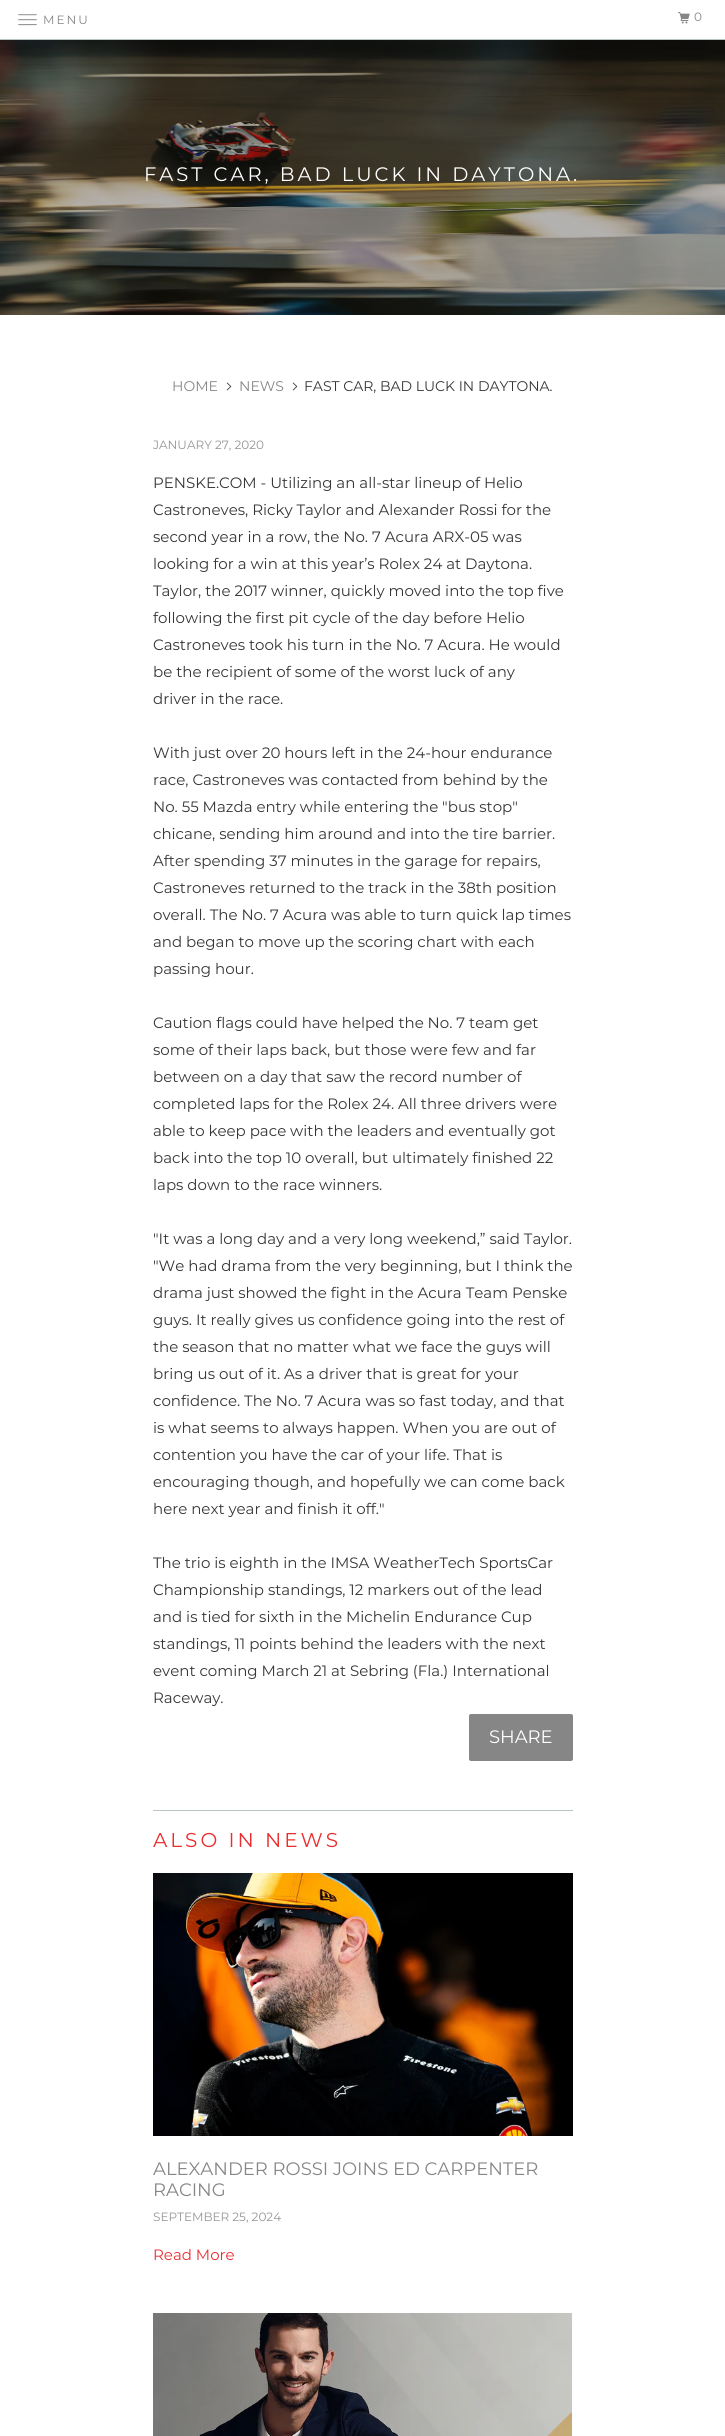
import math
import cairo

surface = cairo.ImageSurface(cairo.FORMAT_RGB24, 725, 2436)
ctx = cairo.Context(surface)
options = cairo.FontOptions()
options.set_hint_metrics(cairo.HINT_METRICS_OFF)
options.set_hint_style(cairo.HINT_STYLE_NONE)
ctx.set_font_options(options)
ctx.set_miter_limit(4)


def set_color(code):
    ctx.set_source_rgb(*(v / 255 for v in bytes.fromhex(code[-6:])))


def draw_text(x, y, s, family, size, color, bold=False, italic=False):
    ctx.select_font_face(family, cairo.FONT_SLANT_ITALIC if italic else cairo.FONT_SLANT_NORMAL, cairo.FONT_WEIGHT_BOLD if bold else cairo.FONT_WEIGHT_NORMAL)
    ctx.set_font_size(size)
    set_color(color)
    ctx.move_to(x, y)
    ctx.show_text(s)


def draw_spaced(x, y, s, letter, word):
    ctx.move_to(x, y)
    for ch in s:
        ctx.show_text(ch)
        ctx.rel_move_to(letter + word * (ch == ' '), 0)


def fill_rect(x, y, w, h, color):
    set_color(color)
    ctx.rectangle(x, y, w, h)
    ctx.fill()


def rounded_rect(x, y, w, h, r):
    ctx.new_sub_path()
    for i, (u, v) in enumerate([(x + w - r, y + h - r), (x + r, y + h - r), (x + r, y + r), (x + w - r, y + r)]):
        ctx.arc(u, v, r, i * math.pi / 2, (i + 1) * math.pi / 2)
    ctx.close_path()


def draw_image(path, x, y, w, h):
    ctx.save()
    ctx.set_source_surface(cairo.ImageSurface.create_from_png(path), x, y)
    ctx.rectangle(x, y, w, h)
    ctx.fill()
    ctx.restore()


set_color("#ffffff")
ctx.paint()
fill_rect(0, 39, 725, 1, "#b8c6c6")
draw_image("assets/img1.png", 18, 14, 19, 12)
ctx.select_font_face("Montserrat")
ctx.set_font_size(12)
set_color("#868686")
draw_spaced(43, 24, "MENU", 2, 0)
draw_image("assets/img2.png", 678, 12, 12, 12)
draw_spaced(694, 21, "0", 2, 0)
draw_image("assets/img3.png", 0, 40, 725, 275)
ctx.set_font_size(19.5)
set_color("#ffffff")
draw_spaced(144, 181, "FAST CAR, BAD LUCK IN DAYTONA.", 3, 0)
draw_text(172, 391, "HOME", "Montserrat", 14, "#868686")
draw_image("assets/img4.png", 226, 382, 6, 9)
draw_text(239, 391, "NEWS", "Montserrat", 14, "#868686")
draw_image("assets/img4.png", 292, 382, 6, 9)
draw_text(304, 391, "FAST CAR, BAD LUCK IN DAYTONA.", "Montserrat", 14, "#363636")
draw_text(153, 449, "JANUARY 27, 2020", "Montserrat", 12, "#959595")
draw_text(153, 488, "PENSKE.COM - Utilizing an all-star lineup of Helio", "Montserrat", 15, "#363636")
draw_text(153, 515, "Castroneves, Ricky Taylor and Alexander Rossi for the", "Montserrat", 15, "#363636")
draw_text(153, 542, "second year in a row, the No. 7 Acura ARX-05 was", "Montserrat", 15, "#363636")
draw_text(153, 569, "looking for a win at this year’s Rolex 24 at Daytona.", "Montserrat", 15, "#363636")
draw_text(153, 596, "Taylor, the 2017 winner, quickly moved into the top five", "Montserrat", 15, "#363636")
draw_text(153, 623, "following the first pit cycle of the day before Helio", "Montserrat", 15, "#363636")
draw_text(153, 650, "Castroneves took his turn in the No. 7 Acura. He would", "Montserrat", 15, "#363636")
draw_text(153, 677, "be the recipient of some of the worst luck of any", "Montserrat", 15, "#363636")
draw_text(153, 704, "driver in the race.", "Montserrat", 15, "#363636")
draw_text(153, 758, "With just over 20 hours left in the 24-hour endurance", "Montserrat", 15, "#363636")
draw_text(153, 785, "race, Castroneves was contacted from behind by the", "Montserrat", 15, "#363636")
draw_text(153, 812, "No. 55 Mazda entry while entering the \"bus stop\"", "Montserrat", 15, "#363636")
draw_text(153, 839, "chicane, sending him around and into the tire barrier.", "Montserrat", 15, "#363636")
draw_text(153, 866, "After spending 37 minutes in the garage for repairs,", "Montserrat", 15, "#363636")
draw_text(153, 893, "Castroneves returned to the track in the 38th position", "Montserrat", 15, "#363636")
draw_text(153, 920, "overall. The No. 7 Acura was able to turn quick lap times", "Montserrat", 15, "#363636")
draw_text(153, 947, "and began to move up the scoring chart with each", "Montserrat", 15, "#363636")
draw_text(153, 974, "passing hour.", "Montserrat", 15, "#363636")
draw_text(153, 1028, "Caution flags could have helped the No. 7 team get", "Montserrat", 15, "#363636")
draw_text(153, 1055, "some of their laps back, but those were few and far", "Montserrat", 15, "#363636")
draw_text(153, 1082, "between on a day that saw the record number of", "Montserrat", 15, "#363636")
draw_text(153, 1109, "completed laps for the Rolex 24. All three drivers were", "Montserrat", 15, "#363636")
draw_text(153, 1136, "able to keep pace with the leaders and eventually got", "Montserrat", 15, "#363636")
draw_text(153, 1163, "back into the top 10 overall, but ultimately finished 22", "Montserrat", 15, "#363636")
draw_text(153, 1190, "laps down to the race winners.", "Montserrat", 15, "#363636")
draw_text(153, 1244, "\"It was a long day and a very long weekend,” said Taylor.", "Montserrat", 15, "#363636")
draw_text(153, 1271, "\"We had drama from the very beginning, but I think the", "Montserrat", 15, "#363636")
draw_text(153, 1298, "drama just showed the fight in the Acura Team Penske", "Montserrat", 15, "#363636")
draw_text(153, 1325, "guys. It really gives us confidence going into the rest of", "Montserrat", 15, "#363636")
draw_text(153, 1352, "the season that no matter what we face the guys will", "Montserrat", 15, "#363636")
draw_text(153, 1379, "bring us out of it. As a driver that is great for your", "Montserrat", 15, "#363636")
draw_text(153, 1406, "confidence. The No. 7 Acura was so fast today, and that", "Montserrat", 15, "#363636")
draw_text(153, 1433, "is what seems to always happen. When you are out of", "Montserrat", 15, "#363636")
draw_text(153, 1460, "contention you have the car of your life. That is", "Montserrat", 15, "#363636")
draw_text(153, 1487, "encouraging though, and hopefully we can come back", "Montserrat", 15, "#363636")
draw_text(153, 1514, "here next year and finish it off.\"", "Montserrat", 15, "#363636")
draw_text(153, 1568, "The trio is eighth in the IMSA WeatherTech SportsCar", "Montserrat", 15, "#363636")
draw_text(153, 1595, "Championship standings, 12 markers out of the lead", "Montserrat", 15, "#363636")
draw_text(153, 1622, "and is tied for sixth in the Michelin Endurance Cup", "Montserrat", 15, "#363636")
draw_text(153, 1649, "standings, 11 points behind the leaders with the next", "Montserrat", 15, "#363636")
draw_text(153, 1676, "event coming March 21 at Sebring (Fla.) International", "Montserrat", 15, "#363636")
draw_text(153, 1703, "Raceway.", "Montserrat", 15, "#363636")
set_color("#868686")
rounded_rect(469, 1714, 104, 47, 2)
ctx.fill()
draw_text(489, 1743, "SHARE", "Montserrat", 18, "#ffffff")
fill_rect(153, 1810, 420, 1, "#b8c6c6")
ctx.set_font_size(20)
set_color("#ea2e2f")
draw_spaced(153, 1847, "ALSO IN NEWS", 3, 0)
draw_image("assets/img5.png", 153, 1873, 420, 263)
draw_text(153, 2175, "ALEXANDER ROSSI JOINS ED CARPENTER", "Montserrat", 18, "#868686")
draw_text(153, 2196, "RACING", "Montserrat", 18, "#868686")
draw_text(153, 2221, "SEPTEMBER 25, 2024", "Montserrat", 12, "#959595")
draw_text(153, 2260, "Read More", "Montserrat", 15, "#ea2e2f")
draw_image("assets/img6.png", 153, 2313, 419, 123)
surface.write_to_png("output.png")
